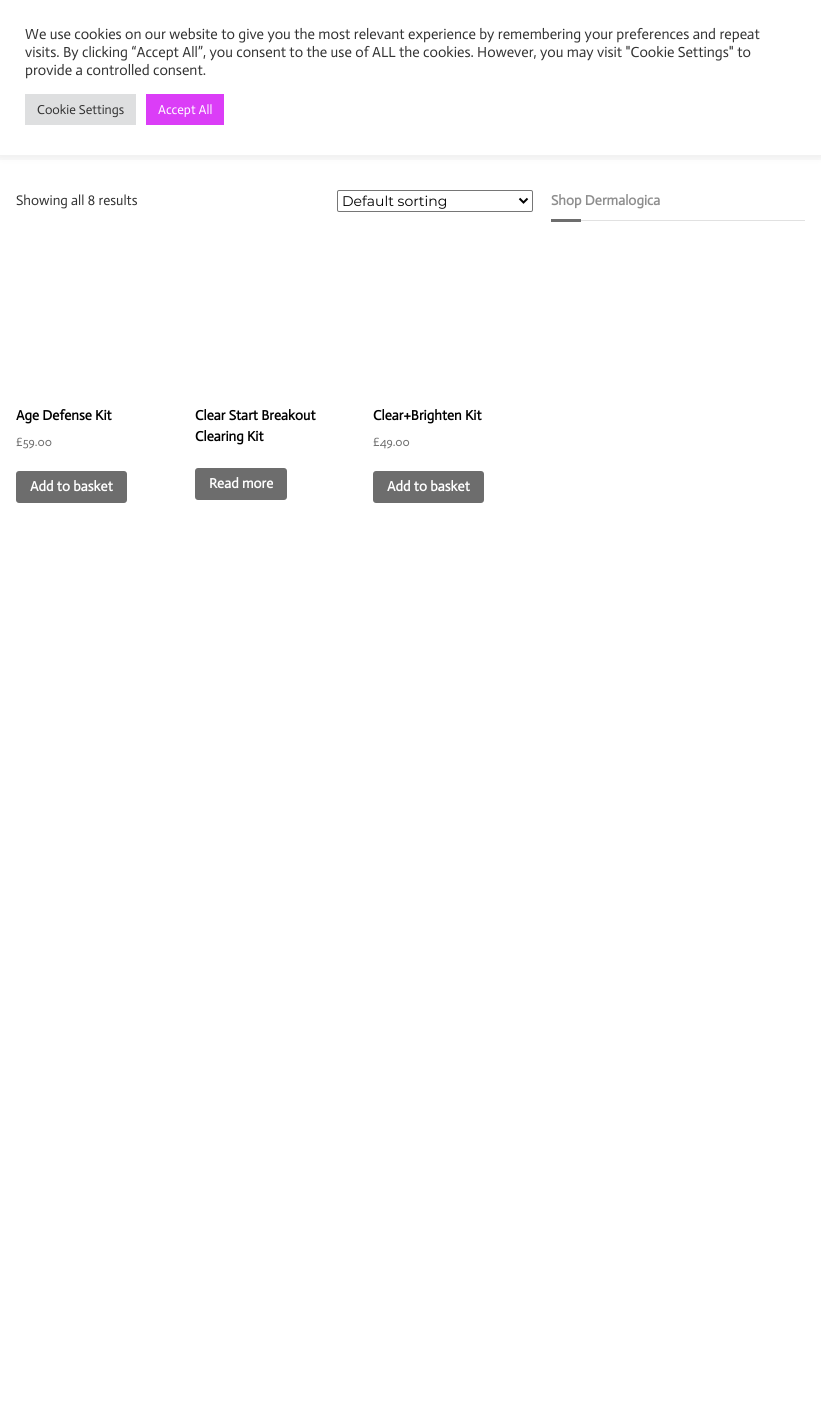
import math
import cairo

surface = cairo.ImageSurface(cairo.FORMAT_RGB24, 821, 1426)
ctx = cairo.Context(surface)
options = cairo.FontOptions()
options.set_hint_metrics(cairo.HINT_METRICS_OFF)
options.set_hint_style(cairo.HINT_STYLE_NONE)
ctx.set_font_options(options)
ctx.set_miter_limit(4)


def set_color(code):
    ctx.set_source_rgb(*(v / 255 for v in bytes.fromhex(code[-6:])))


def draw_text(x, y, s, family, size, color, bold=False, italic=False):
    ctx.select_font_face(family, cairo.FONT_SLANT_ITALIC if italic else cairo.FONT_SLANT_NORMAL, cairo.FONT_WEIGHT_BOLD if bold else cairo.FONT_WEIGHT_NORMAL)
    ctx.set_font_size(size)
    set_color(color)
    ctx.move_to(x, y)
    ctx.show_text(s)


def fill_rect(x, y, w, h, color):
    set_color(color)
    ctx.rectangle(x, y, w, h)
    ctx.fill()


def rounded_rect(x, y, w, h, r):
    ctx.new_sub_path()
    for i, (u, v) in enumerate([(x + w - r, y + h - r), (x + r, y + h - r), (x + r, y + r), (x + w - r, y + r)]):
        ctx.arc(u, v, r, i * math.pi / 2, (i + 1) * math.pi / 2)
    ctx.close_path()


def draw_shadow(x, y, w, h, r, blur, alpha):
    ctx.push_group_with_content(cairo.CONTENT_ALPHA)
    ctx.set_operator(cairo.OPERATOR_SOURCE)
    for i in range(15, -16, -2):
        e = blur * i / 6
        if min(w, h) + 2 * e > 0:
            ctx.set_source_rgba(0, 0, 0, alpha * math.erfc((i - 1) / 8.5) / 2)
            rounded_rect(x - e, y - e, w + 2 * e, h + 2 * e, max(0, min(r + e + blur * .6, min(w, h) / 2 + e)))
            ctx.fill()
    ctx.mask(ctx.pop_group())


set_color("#ffffff")
ctx.paint()
fill_rect(0, 155, 821, 5, "#fafafa")
set_color("#acabab")
draw_shadow(0, -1, 821, 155, 0, 5, 0.3)
fill_rect(0, 0, 821, 155, "#ffffff")
draw_text(25, 39, "We use cookies on our website to give you the most relevant experience by remembering your preferences and repeat", "Actor", 14.67, "#333333")
draw_text(25, 57, "visits. By clicking “Accept All”, you consent to the use of ALL the cookies. However, you may visit \"Cookie Settings\" to", "Actor", 14.67, "#333333")
draw_text(25, 75, "provide a controlled consent.", "Actor", 14.67, "#333333")
fill_rect(25, 94, 111, 31, "#dedfe0")
draw_text(37, 114, "Cookie Settings", "Actor", 13, "#333333")
fill_rect(146, 94, 78, 31, "#db3df7")
draw_text(158, 114, "Accept All", "Actor", 13, "#ffffff")
draw_text(16, 205, "Showing all 8 results", "Actor", 14, "#333333")
rounded_rect(337.5, 190.5, 195, 21, 1.5)
set_color("#767676")
ctx.set_line_width(1)
ctx.stroke()
ctx.new_path()
ctx.move_to(519.5, 198.5)
ctx.line_to(523.5, 202.5)
ctx.line_to(527.5, 198.5)
set_color("#000000")
ctx.set_line_width(2)
ctx.stroke()
draw_text(342, 206, "Default sorting", "Montserrat", 14, "#000000")
draw_text(16, 420, "Age Defense Kit", "Actor", 14, "#000000", bold=True)
draw_text(16, 446, "£59.00", "Actor", 12, "#6d6d6d")
rounded_rect(16, 471, 111, 32, 3)
ctx.fill()
draw_text(30, 491, "Add to basket", "Actor", 14, "#ffffff", bold=True)
draw_text(195, 420, "Clear Start Breakout", "Actor", 14, "#000000", bold=True)
draw_text(195, 441, "Clearing Kit", "Actor", 14, "#000000", bold=True)
set_color("#6d6d6d")
rounded_rect(195, 468, 92, 32, 3)
ctx.fill()
draw_text(209, 488, "Read more", "Actor", 14, "#ffffff", bold=True)
draw_text(373, 420, "Clear+Brighten Kit", "Actor", 14, "#000000", bold=True)
draw_text(373, 446, "£49.00", "Actor", 12, "#6d6d6d")
rounded_rect(373, 471, 111, 32, 3)
ctx.fill()
draw_text(387, 491, "Add to basket", "Actor", 14, "#ffffff", bold=True)
draw_text(551, 205, "Shop Dermalogica", "Actor", 14, "#8e8e8e", bold=True)
fill_rect(551, 219, 30, 3, "#6d6d6d")
fill_rect(581, 220, 224, 1, "#e1e1e1")
surface.write_to_png("output.png")
